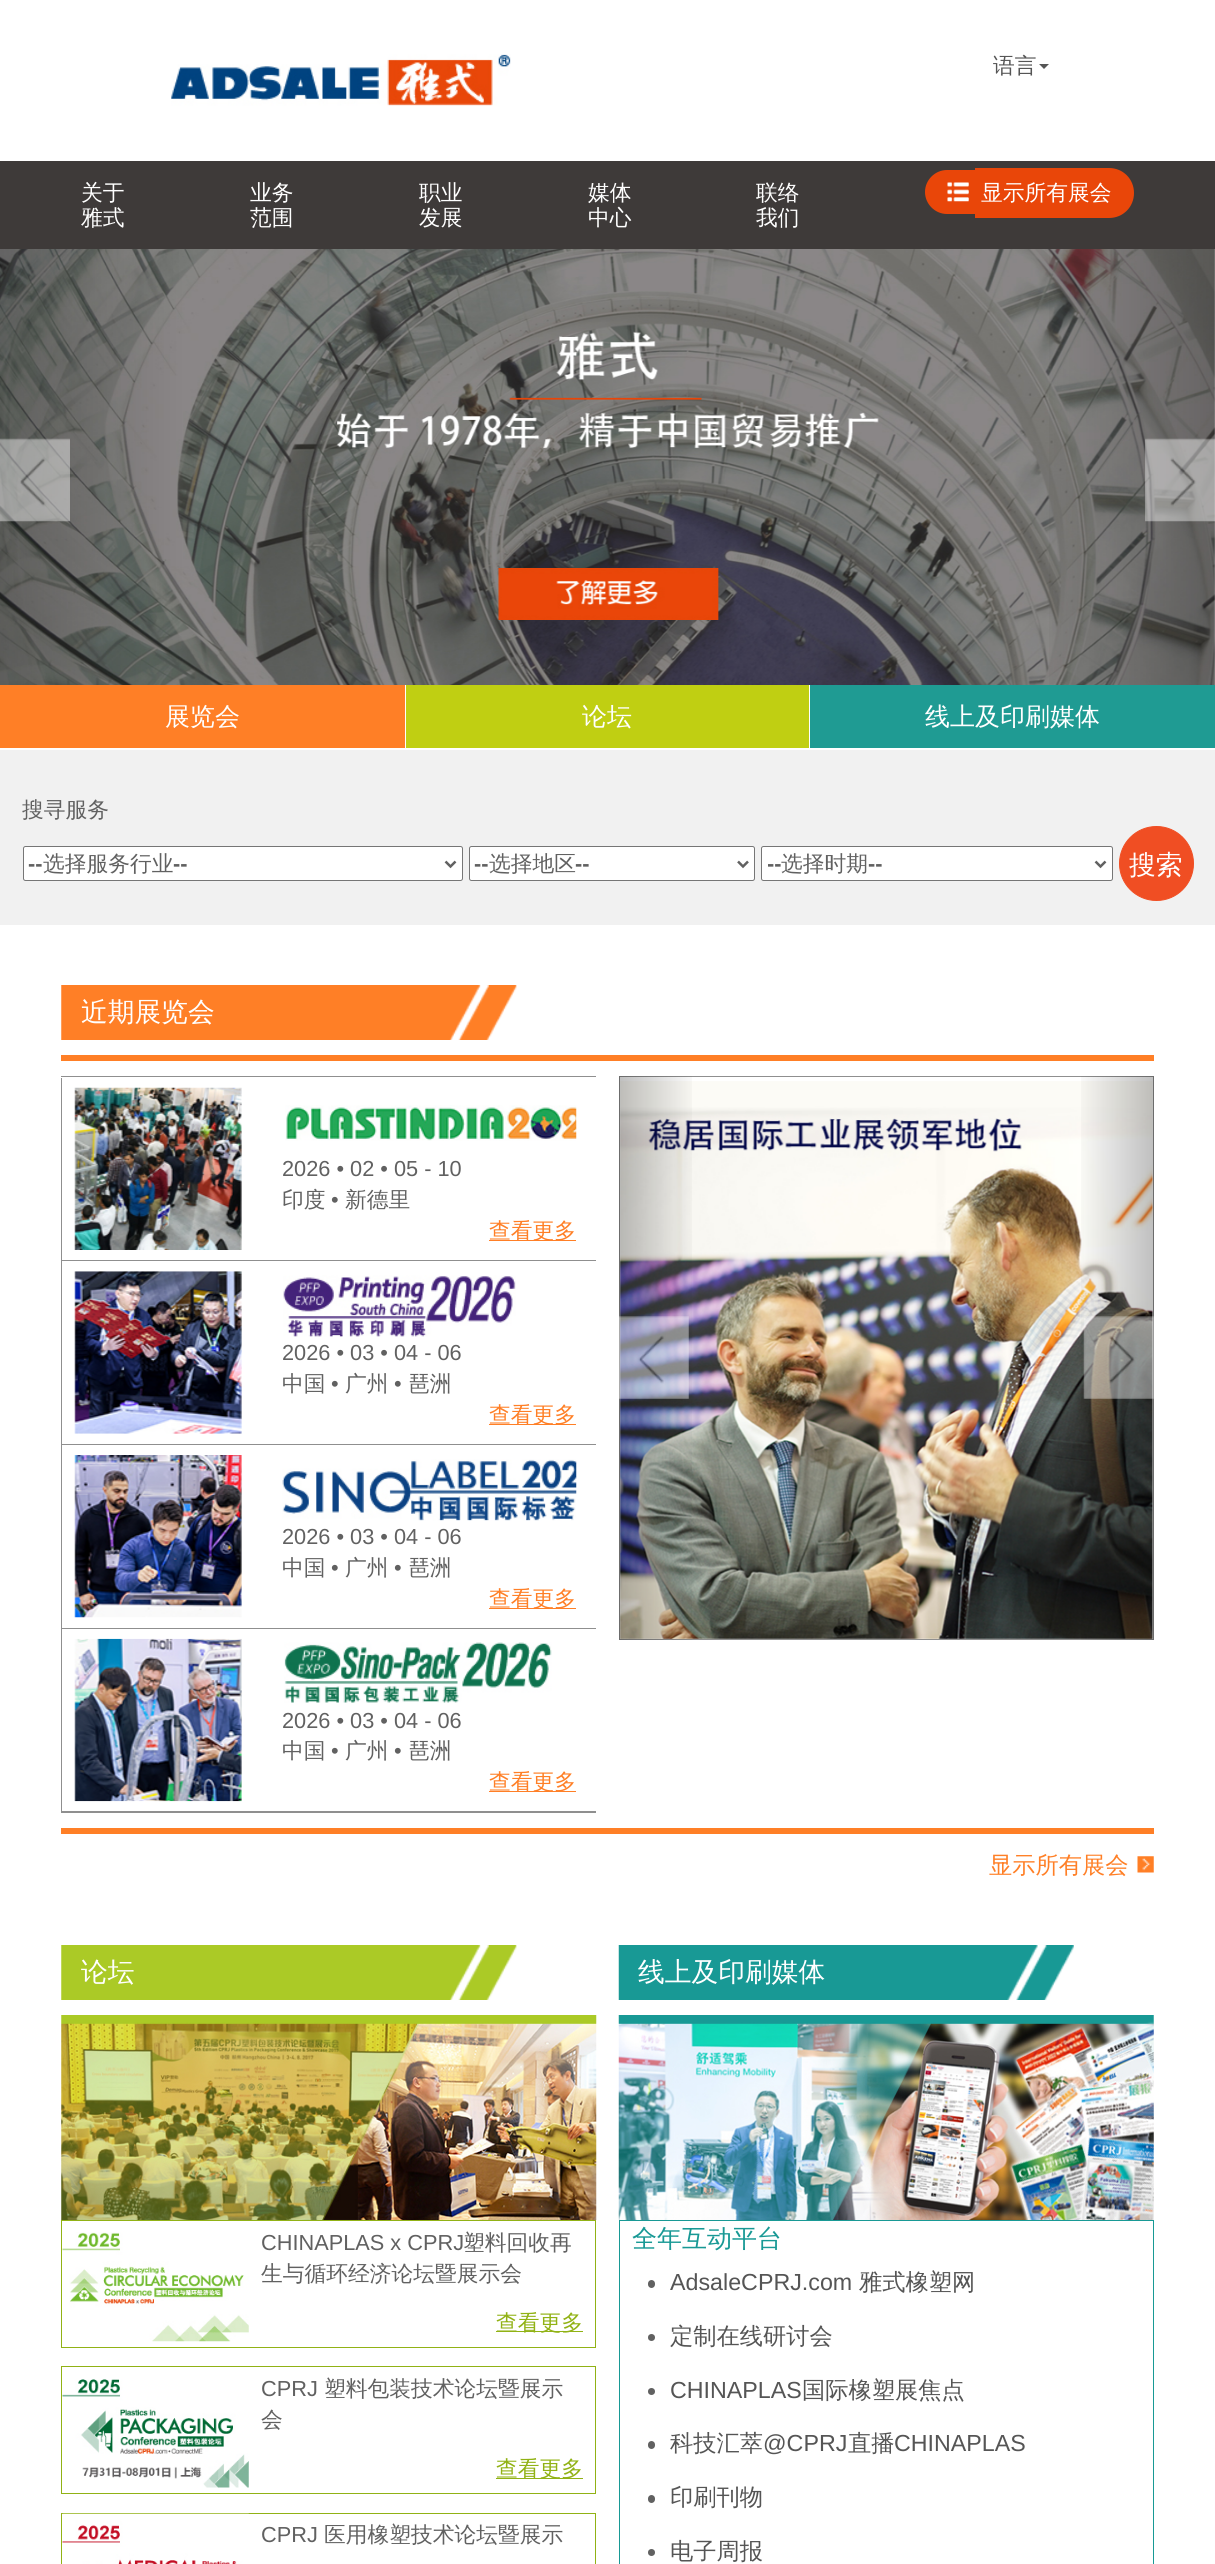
import math
import cairo

surface = cairo.ImageSurface(cairo.FORMAT_RGB24, 1215, 2564)
ctx = cairo.Context(surface)
options = cairo.FontOptions()
options.set_hint_metrics(cairo.HINT_METRICS_OFF)
options.set_hint_style(cairo.HINT_STYLE_NONE)
ctx.set_font_options(options)
ctx.set_miter_limit(4)


def set_color(code):
    ctx.set_source_rgb(*(v / 255 for v in bytes.fromhex(code[-6:])))


def draw_text(x, y, s, family, size, color, bold=False, italic=False):
    ctx.select_font_face(family, cairo.FONT_SLANT_ITALIC if italic else cairo.FONT_SLANT_NORMAL, cairo.FONT_WEIGHT_BOLD if bold else cairo.FONT_WEIGHT_NORMAL)
    ctx.set_font_size(size)
    set_color(color)
    ctx.move_to(x, y)
    ctx.show_text(s)


def fill_rect(x, y, w, h, color):
    set_color(color)
    ctx.rectangle(x, y, w, h)
    ctx.fill()


def rounded_rect(x, y, w, h, r):
    ctx.new_sub_path()
    for i, (u, v) in enumerate([(x + w - r, y + h - r), (x + r, y + h - r), (x + r, y + r), (x + w - r, y + r)]):
        ctx.arc(u, v, r, i * math.pi / 2, (i + 1) * math.pi / 2)
    ctx.close_path()


def draw_image(path, x, y, w, h):
    ctx.save()
    ctx.set_source_surface(cairo.ImageSurface.create_from_png(path), x, y)
    ctx.rectangle(x, y, w, h)
    ctx.fill()
    ctx.restore()


set_color("#ffffff")
ctx.paint()
draw_image("assets/img1.png", 171, 54, 340, 52)
draw_text(993, 73, "语言", "WenQuanYi Zen Hei Medium", 21.75, "#555555")
ctx.new_path()
ctx.move_to(1039, 64)
ctx.line_to(1049, 64)
ctx.line_to(1044, 69)
ctx.close_path()
ctx.fill()
fill_rect(0, 161, 1215, 88, "#3e3a39")
draw_text(81, 200, "关于", "WenQuanYi Zen Hei Medium", 21.75, "#ffffff")
draw_text(81, 225, "雅式", "WenQuanYi Zen Hei Medium", 21.75, "#ffffff")
draw_text(250, 200, "业务", "WenQuanYi Zen Hei Medium", 21.75, "#ffffff")
draw_text(250, 225, "范围", "WenQuanYi Zen Hei Medium", 21.75, "#ffffff")
draw_text(419, 200, "职业", "WenQuanYi Zen Hei Medium", 21.75, "#ffffff")
draw_text(419, 225, "发展", "WenQuanYi Zen Hei Medium", 21.75, "#ffffff")
draw_text(588, 200, "媒体", "WenQuanYi Zen Hei Medium", 21.75, "#ffffff")
draw_text(588, 225, "中心", "WenQuanYi Zen Hei Medium", 21.75, "#ffffff")
draw_text(756, 200, "联络", "WenQuanYi Zen Hei Medium", 21.75, "#ffffff")
draw_text(756, 225, "我们", "WenQuanYi Zen Hei Medium", 21.75, "#ffffff")
set_color("#e94609")
ctx.new_path()
ctx.move_to(947, 170)
ctx.line_to(975, 170)
ctx.line_to(975, 214)
ctx.line_to(947, 214)
ctx.curve_to(935, 214, 925, 204, 925, 192)
ctx.curve_to(925, 180, 935, 170, 947, 170)
ctx.close_path()
ctx.fill()
draw_image("assets/img2.png", 947, 182, 22, 20)
ctx.new_path()
ctx.move_to(975, 168)
ctx.line_to(1109, 168)
ctx.curve_to(1123, 168, 1134, 179, 1134, 193)
ctx.curve_to(1134, 207, 1123, 218, 1109, 218)
ctx.line_to(975, 218)
ctx.close_path()
ctx.fill()
draw_text(981, 200, "显示所有展会", "WenQuanYi Zen Hei Medium", 21.75, "#ffffff")
draw_image("assets/img3.png", 0, 249, 1215, 436)
draw_image("assets/img4.png", 0, 438, 70, 84)
gradient = cairo.LinearGradient(1033, 479, 1215, 479)
gradient.add_color_stop_rgba(0, 0, 0, 0, 0)
gradient.add_color_stop_rgba(1, 0, 0, 0, 0.25)
ctx.set_source(gradient)
ctx.rectangle(1049, 249, 166, 436)
ctx.fill()
draw_image("assets/img5.png", 1145, 438, 70, 84)
fill_rect(0, 685, 405, 63, "#ff7f26")
draw_text(165, 725, "展览会", "WenQuanYi Zen Hei Medium", 25, "#ffffff")
fill_rect(406, 685, 403, 63, "#c0cf12")
draw_text(582, 725, "论坛", "WenQuanYi Zen Hei Medium", 25, "#ffffff")
fill_rect(810, 685, 405, 63, "#1f9b93")
draw_text(925, 725, "线上及印刷媒体", "WenQuanYi Zen Hei Medium", 25, "#ffffff")
fill_rect(0, 750, 1215, 175, "#f1f1f1")
draw_text(22, 817, "搜寻服务", "WenQuanYi Zen Hei Medium", 21.75, "#616161")
set_color("#ffffff")
rounded_rect(23.5, 846.5, 439, 34, 2)
ctx.fill_preserve()
set_color("#767676")
ctx.set_line_width(1)
ctx.stroke()
ctx.new_path()
ctx.move_to(445.5, 861.5)
ctx.line_to(450.5, 866.5)
ctx.line_to(455.5, 861.5)
set_color("#616161")
ctx.set_line_width(2.5)
ctx.stroke()
draw_text(28, 871, "--", "Liberation Sans", 21.75, "#616161", bold=True)
draw_text(43, 871, "选择服务行业", "WenQuanYi Zen Hei Medium", 21.75, "#616161")
draw_text(173, 871, "--", "Liberation Sans", 21.75, "#616161", bold=True)
set_color("#ffffff")
rounded_rect(469.5, 846.5, 285, 34, 2)
ctx.fill_preserve()
set_color("#767676")
ctx.set_line_width(1)
ctx.stroke()
ctx.new_path()
ctx.move_to(738, 861.5)
ctx.line_to(743, 866.5)
ctx.line_to(748, 861.5)
set_color("#616161")
ctx.set_line_width(2.5)
ctx.stroke()
draw_text(474, 871, "--", "Liberation Sans", 21.75, "#616161", bold=True)
draw_text(489, 871, "选择地区", "WenQuanYi Zen Hei Medium", 21.75, "#616161")
draw_text(575, 871, "--", "Liberation Sans", 21.75, "#616161", bold=True)
set_color("#ffffff")
rounded_rect(761.5, 846.5, 351, 34, 2)
ctx.fill_preserve()
set_color("#767676")
ctx.set_line_width(1)
ctx.stroke()
ctx.new_path()
ctx.move_to(1095.5, 861.5)
ctx.line_to(1100.5, 866.5)
ctx.line_to(1105.5, 861.5)
set_color("#616161")
ctx.set_line_width(2.5)
ctx.stroke()
ctx.save()
ctx.rectangle(768, 850, 323, 28)
ctx.clip()
draw_text(767, 871, "--", "Liberation Sans", 21.75, "#616161", bold=True)
ctx.restore()
draw_text(781, 871, "选择时期", "WenQuanYi Zen Hei Medium", 21.75, "#616161")
draw_text(868, 871, "--", "Liberation Sans", 21.75, "#616161", bold=True)
set_color("#f04e23")
ctx.new_path()
ctx.arc(1156.5, 863.5, 37, 0, 2 * math.pi)
ctx.fill_preserve()
ctx.set_line_width(1)
ctx.stroke()
draw_text(1129, 874, "搜索", "WenQuanYi Zen Hei Medium", 26.75, "#ffffff")
draw_image("assets/img6.png", 61, 985, 456, 55)
draw_text(81, 1021, "近期展览会", "WenQuanYi Zen Hei Medium", 26.75, "#ffffff")
fill_rect(61, 1055, 1093, 6, "#ff7f26")
fill_rect(61, 1076, 535, 1, "#8f8f8f")
ctx.save()
ctx.rectangle(61, 1078, 535, 735)
ctx.clip()
ctx.rectangle(61.5, 1076.5, 536, 184)
ctx.stroke()
ctx.restore()
draw_image("assets/img7.png", 74, 1087, 168, 163)
draw_image("assets/img8.png", 285, 1105, 292, 36)
draw_text(282, 1176, "2026 • 02 • 05 - 10", "Liberation Sans", 21.75, "#616161")
draw_text(282, 1207, "印度", "WenQuanYi Zen Hei Medium", 21.75, "#616161")
draw_text(331, 1207, "•", "Liberation Sans", 21.75, "#616161")
draw_text(345, 1207, "新德里", "WenQuanYi Zen Hei Medium", 21.75, "#616161")
fill_rect(489, 1240, 87, 1, "#ff7f26")
draw_text(489, 1238, "查看更多", "WenQuanYi Zen Hei Medium", 21.75, "#ff7f26")
ctx.save()
ctx.rectangle(61, 1078, 535, 735)
ctx.clip()
ctx.rectangle(61.5, 1260.5, 536, 184)
set_color("#8f8f8f")
ctx.stroke()
ctx.restore()
draw_image("assets/img9.png", 74, 1271, 168, 163)
draw_image("assets/img10.png", 283, 1275, 233, 62)
draw_text(282, 1360, "2026 • 03 • 04 - 06", "Liberation Sans", 21.75, "#616161")
draw_text(282, 1391, "中国", "WenQuanYi Zen Hei Medium", 21.75, "#616161")
draw_text(331, 1391, "•", "Liberation Sans", 21.75, "#616161")
draw_text(345, 1391, "广州", "WenQuanYi Zen Hei Medium", 21.75, "#616161")
draw_text(394, 1391, "•", "Liberation Sans", 21.75, "#616161")
draw_text(408, 1391, "琶洲", "WenQuanYi Zen Hei Medium", 21.75, "#616161")
fill_rect(489, 1424, 87, 1, "#ff7f26")
draw_text(489, 1422, "查看更多", "WenQuanYi Zen Hei Medium", 21.75, "#ff7f26")
ctx.save()
ctx.rectangle(61, 1078, 535, 735)
ctx.clip()
ctx.rectangle(61.5, 1444.5, 536, 184)
set_color("#8f8f8f")
ctx.stroke()
ctx.restore()
draw_image("assets/img11.png", 74, 1455, 168, 163)
draw_image("assets/img12.png", 282, 1459, 295, 62)
draw_text(282, 1544, "2026 • 03 • 04 - 06", "Liberation Sans", 21.75, "#616161")
draw_text(282, 1575, "中国", "WenQuanYi Zen Hei Medium", 21.75, "#616161")
draw_text(331, 1575, "•", "Liberation Sans", 21.75, "#616161")
draw_text(345, 1575, "广州", "WenQuanYi Zen Hei Medium", 21.75, "#616161")
draw_text(394, 1575, "•", "Liberation Sans", 21.75, "#616161")
draw_text(408, 1575, "琶洲", "WenQuanYi Zen Hei Medium", 21.75, "#616161")
fill_rect(489, 1608, 87, 1, "#ff7f26")
draw_text(489, 1606, "查看更多", "WenQuanYi Zen Hei Medium", 21.75, "#ff7f26")
ctx.save()
ctx.rectangle(61, 1078, 535, 735)
ctx.clip()
ctx.rectangle(61.5, 1628.5, 536, 184)
set_color("#8f8f8f")
ctx.stroke()
ctx.restore()
draw_image("assets/img13.png", 74, 1638, 168, 164)
draw_image("assets/img14.png", 284, 1642, 268, 61)
draw_text(282, 1728, "2026 • 03 • 04 - 06", "Liberation Sans", 21.75, "#616161")
draw_text(282, 1758, "中国", "WenQuanYi Zen Hei Medium", 21.75, "#616161")
draw_text(331, 1758, "•", "Liberation Sans", 21.75, "#616161")
draw_text(345, 1758, "广州", "WenQuanYi Zen Hei Medium", 21.75, "#616161")
draw_text(394, 1758, "•", "Liberation Sans", 21.75, "#616161")
draw_text(408, 1758, "琶洲", "WenQuanYi Zen Hei Medium", 21.75, "#616161")
fill_rect(489, 1791, 87, 1, "#ff7f26")
draw_text(489, 1789, "查看更多", "WenQuanYi Zen Hei Medium", 21.75, "#ff7f26")
fill_rect(61, 1828, 1093, 6, "#ff7f26")
draw_image("assets/img19.png", 61, 1945, 456, 55)
ctx.save()
ctx.rectangle(61, 1078, 535, 735)
ctx.clip()
ctx.rectangle(61.5, 1811.5, 536, 184)
set_color("#8f8f8f")
ctx.stroke()
ctx.restore()
ctx.rectangle(619.5, 1076.5, 534, 563)
set_color("#8f8f8f")
ctx.stroke()
draw_image("assets/img15.png", 620, 1081, 533, 558)
gradient = cairo.LinearGradient(619, 1358, 699, 1358)
gradient.add_color_stop_rgba(0, 0, 0, 0, 0.25)
gradient.add_color_stop_rgba(1, 0, 0, 0, 0)
ctx.set_source(gradient)
ctx.rectangle(619, 1076, 73, 564)
ctx.fill()
draw_image("assets/img16.png", 619, 1316, 70, 83)
gradient = cairo.LinearGradient(1074, 1358, 1154, 1358)
gradient.add_color_stop_rgba(0, 0, 0, 0, 0)
gradient.add_color_stop_rgba(1, 0, 0, 0, 0.25)
ctx.set_source(gradient)
ctx.rectangle(1081, 1076, 73, 564)
ctx.fill()
draw_image("assets/img17.png", 1083, 1316, 71, 83)
draw_text(989, 1873, "显示所有展会", "WenQuanYi Zen Hei Medium", 23.25, "#ff7f26")
draw_image("assets/img18.png", 1137, 1856, 17, 17)
draw_text(81, 1981, "论坛", "WenQuanYi Zen Hei Medium", 26.75, "#ffffff")
draw_image("assets/img20.png", 61, 2015, 536, 205)
ctx.rectangle(61.5, 2220.5, 534, 127)
set_color("#91b215")
ctx.stroke()
draw_image("assets/img21.png", 62, 2232, 187, 110)
draw_text(261, 2250, "CHINAPLAS x CPRJ", "Liberation Sans", 21.75, "#616161")
draw_text(463, 2250, "塑料回收再", "WenQuanYi Zen Hei Medium", 21.75, "#616161")
draw_text(261, 2281, "生与循环经济论坛暨展示会", "WenQuanYi Zen Hei Medium", 21.75, "#616161")
fill_rect(496, 2331, 87, 1, "#91b215")
draw_text(496, 2330, "查看更多", "WenQuanYi Zen Hei Medium", 21.75, "#91b215")
ctx.rectangle(61.5, 2366.5, 534, 127)
ctx.stroke()
draw_image("assets/img22.png", 62, 2379, 187, 109)
draw_text(261, 2396, "CPRJ", "Liberation Sans", 21.75, "#616161")
draw_text(324, 2396, "塑料包装技术论坛暨展示", "WenQuanYi Zen Hei Medium", 21.75, "#616161")
draw_text(261, 2427, "会", "WenQuanYi Zen Hei Medium", 21.75, "#616161")
fill_rect(496, 2478, 87, 1, "#91b215")
draw_text(496, 2476, "查看更多", "WenQuanYi Zen Hei Medium", 21.75, "#91b215")
ctx.rectangle(61.5, 2513.5, 534, 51)
ctx.stroke()
draw_image("assets/img23.png", 62, 2513, 187, 51)
draw_text(261, 2542, "CPRJ", "Liberation Sans", 21.75, "#616161")
draw_text(324, 2542, "医用橡塑技术论坛暨展示", "WenQuanYi Zen Hei Medium", 21.75, "#616161")
draw_image("assets/img24.png", 618, 1945, 456, 55)
draw_text(638, 1981, "线上及印刷媒体", "WenQuanYi Zen Hei Medium", 26.75, "#ffffff")
draw_image("assets/img25.png", 618, 2015, 536, 205)
ctx.rectangle(619.5, 2220.5, 534, 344)
set_color("#189995")
ctx.stroke()
draw_text(632, 2247, "全年互动平台", "WenQuanYi Zen Hei Medium", 25, "#189995")
set_color("#616161")
rounded_rect(648, 2280, 7, 8, 3.5)
ctx.fill()
draw_text(670, 2290, "AdsaleCPRJ.com", "Liberation Sans", 23.25, "#555555")
draw_text(859, 2290, "雅式橡塑网", "WenQuanYi Zen Hei Medium", 23.25, "#555555")
set_color("#616161")
ctx.new_path()
ctx.arc(651.5, 2337.5, 3.5, 0, 2 * math.pi)
ctx.fill()
draw_text(670, 2344, "定制在线研讨会", "WenQuanYi Zen Hei Medium", 23.25, "#555555")
set_color("#616161")
ctx.new_path()
ctx.arc(651.5, 2391.5, 3.5, 0, 2 * math.pi)
ctx.fill()
draw_text(670, 2398, "CHINAPLAS", "Liberation Sans", 23.25, "#555555")
draw_text(802, 2398, "国际橡塑展焦点", "WenQuanYi Zen Hei Medium", 23.25, "#555555")
set_color("#616161")
rounded_rect(648, 2441, 7, 8, 3.5)
ctx.fill()
draw_text(670, 2451, "科技汇萃", "WenQuanYi Zen Hei Medium", 23.25, "#555555")
draw_text(763, 2451, "@CPRJ", "Liberation Sans", 23.25, "#555555")
draw_text(848, 2451, "直播", "WenQuanYi Zen Hei Medium", 23.25, "#555555")
draw_text(894, 2451, "CHINAPLAS", "Liberation Sans", 23.25, "#555555")
set_color("#616161")
rounded_rect(648, 2495, 7, 8, 3.5)
ctx.fill()
draw_text(670, 2505, "印刷刊物", "WenQuanYi Zen Hei Medium", 23.25, "#555555")
set_color("#616161")
ctx.new_path()
ctx.arc(651.5, 2552.5, 3.5, 0, 2 * math.pi)
ctx.fill()
draw_text(670, 2559, "电子周报", "WenQuanYi Zen Hei Medium", 23.25, "#555555")
surface.write_to_png("output.png")
